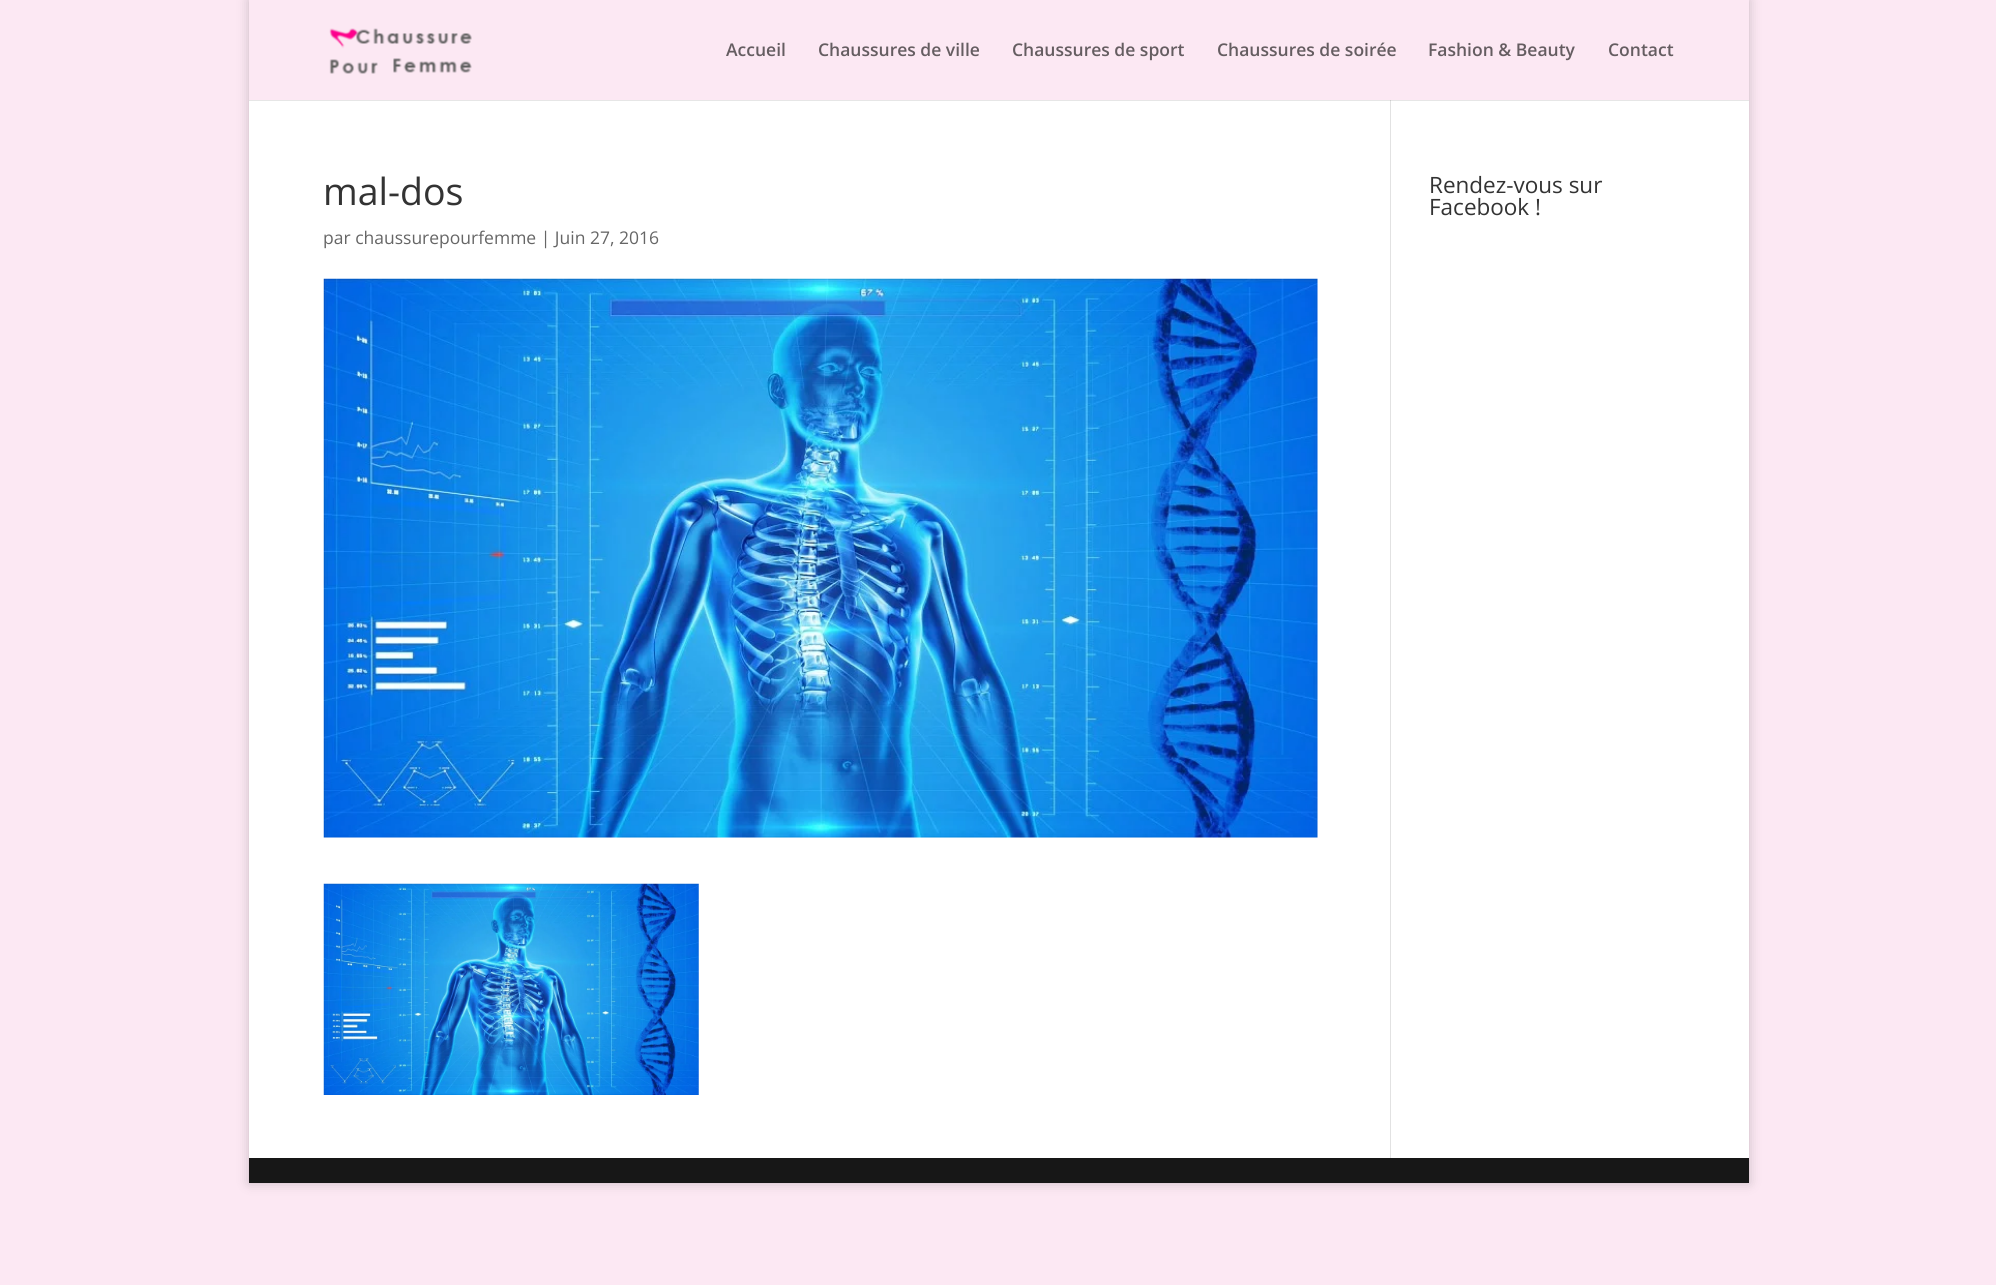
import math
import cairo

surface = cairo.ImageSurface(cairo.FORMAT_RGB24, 1996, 1285)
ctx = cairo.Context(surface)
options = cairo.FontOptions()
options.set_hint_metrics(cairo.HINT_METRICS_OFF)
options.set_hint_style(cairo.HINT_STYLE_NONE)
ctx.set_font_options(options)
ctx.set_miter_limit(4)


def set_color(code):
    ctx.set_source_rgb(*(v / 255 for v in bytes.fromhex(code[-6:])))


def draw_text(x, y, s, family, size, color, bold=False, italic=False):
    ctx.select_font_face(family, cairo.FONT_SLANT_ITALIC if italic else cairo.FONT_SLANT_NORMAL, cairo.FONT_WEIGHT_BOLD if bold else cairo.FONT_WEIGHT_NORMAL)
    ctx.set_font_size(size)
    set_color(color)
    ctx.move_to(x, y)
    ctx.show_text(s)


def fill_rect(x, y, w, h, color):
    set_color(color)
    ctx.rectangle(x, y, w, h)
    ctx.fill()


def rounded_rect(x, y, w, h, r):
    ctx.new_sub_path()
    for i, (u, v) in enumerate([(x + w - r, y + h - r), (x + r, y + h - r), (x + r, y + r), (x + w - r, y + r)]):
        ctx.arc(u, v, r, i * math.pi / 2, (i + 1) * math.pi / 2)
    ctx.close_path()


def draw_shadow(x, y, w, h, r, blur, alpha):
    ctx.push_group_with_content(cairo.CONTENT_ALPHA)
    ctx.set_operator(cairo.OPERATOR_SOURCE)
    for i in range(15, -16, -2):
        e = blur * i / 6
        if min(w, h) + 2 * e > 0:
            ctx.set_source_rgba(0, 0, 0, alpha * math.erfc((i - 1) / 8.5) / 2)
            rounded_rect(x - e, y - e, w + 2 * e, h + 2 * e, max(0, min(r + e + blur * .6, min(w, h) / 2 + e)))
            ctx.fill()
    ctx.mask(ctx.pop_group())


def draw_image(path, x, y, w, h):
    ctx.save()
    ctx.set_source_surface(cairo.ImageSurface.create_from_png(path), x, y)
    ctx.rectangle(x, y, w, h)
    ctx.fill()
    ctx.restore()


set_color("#fce8f3")
ctx.paint()
set_color("#000000")
draw_shadow(249, 0, 1500, 1183, 0, 6, 0.2)
fill_rect(249, 100, 1500, 1058, "#ffffff")
fill_rect(1390, 100, 1, 1058, "#e2e2e2")
ctx.set_source_rgba(0, 0, 0, 0.1)
ctx.new_path()
ctx.move_to(249, 100)
ctx.line_to(249, 101)
ctx.line_to(1749, 101)
ctx.line_to(1749, 1)
ctx.line_to(1749, 100)
ctx.close_path()
ctx.fill()
fill_rect(249, 0, 1500, 100, "#fce8f3")
draw_image("assets/img1.png", 329, 28, 143, 46)
draw_text(726, 56, "Accueil", "Open Sans SemiBold", 17.5, "#655d61")
draw_text(818, 56, "Chaussures de ville", "Open Sans SemiBold", 17.5, "#655d61")
draw_text(1012, 56, "Chaussures de sport", "Open Sans SemiBold", 17.5, "#655d61")
draw_text(1217, 56, "Chaussures de soirée", "Open Sans SemiBold", 17.5, "#655d61")
draw_text(1428, 56, "Fashion & Beauty", "Open Sans SemiBold", 17.5, "#655d61")
draw_text(1608, 56, "Contact", "Open Sans SemiBold", 17.5, "#655d61")
draw_text(323, 205, "mal-dos", "Open Sans", 37.5, "#333333")
draw_text(323, 244, "par chaussurepourfemme | Juin 27, 2016", "Open Sans", 17.5, "#666666")
draw_image("assets/img2.png", 323, 278, 995, 560)
draw_image("assets/img3.png", 323, 883, 376, 212)
draw_text(1429, 193, "Rendez-vous sur", "Open Sans", 22.5, "#333333")
draw_text(1429, 215, "Facebook !", "Open Sans", 22.5, "#333333")
fill_rect(249, 1158, 1500, 25, "#171717")
surface.write_to_png("output.png")
